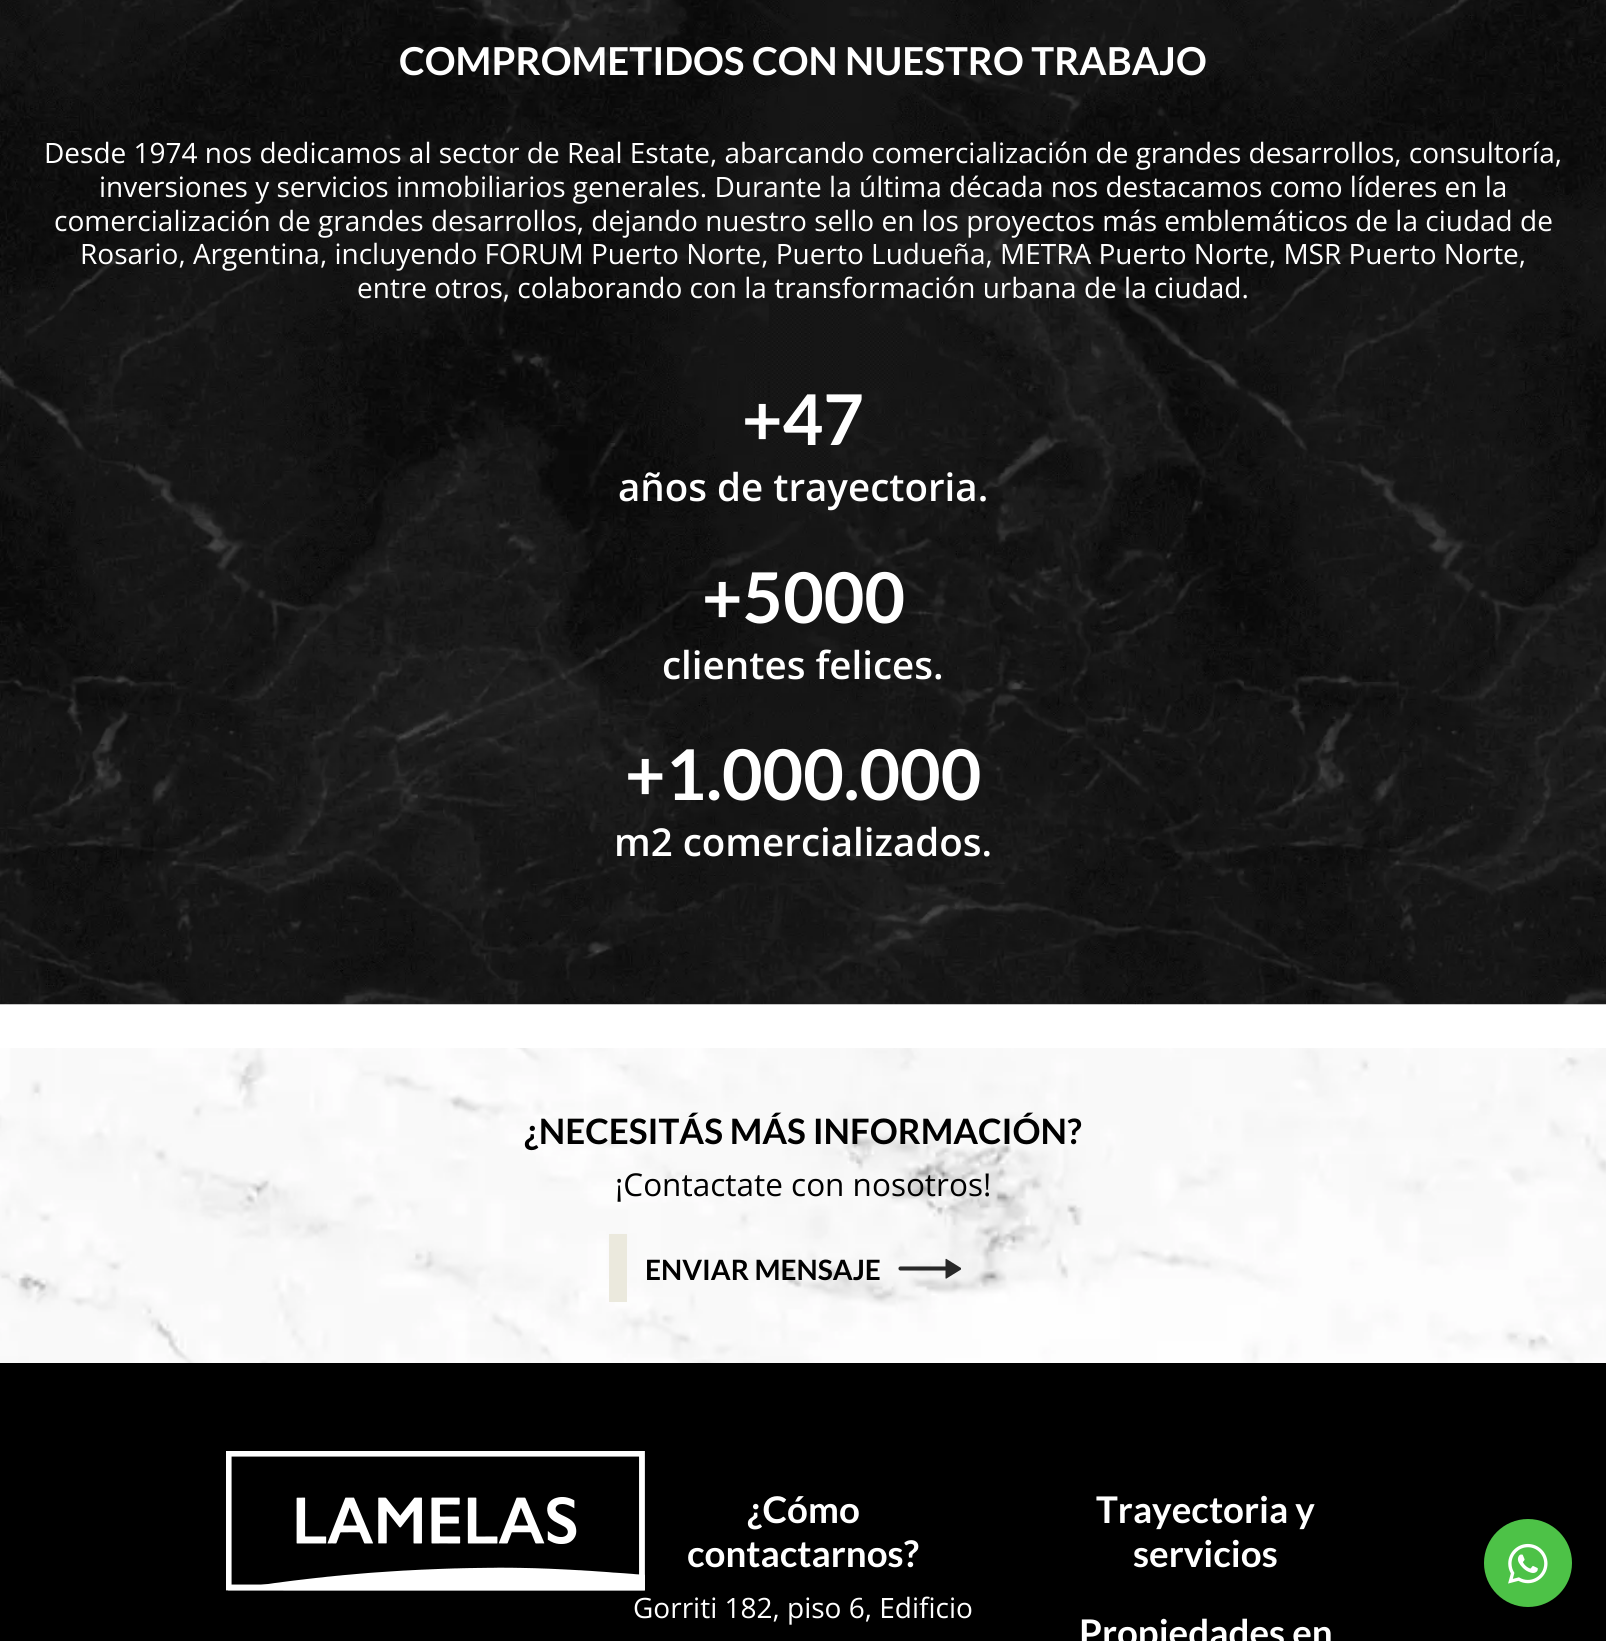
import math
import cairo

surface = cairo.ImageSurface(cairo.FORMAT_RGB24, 1606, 1641)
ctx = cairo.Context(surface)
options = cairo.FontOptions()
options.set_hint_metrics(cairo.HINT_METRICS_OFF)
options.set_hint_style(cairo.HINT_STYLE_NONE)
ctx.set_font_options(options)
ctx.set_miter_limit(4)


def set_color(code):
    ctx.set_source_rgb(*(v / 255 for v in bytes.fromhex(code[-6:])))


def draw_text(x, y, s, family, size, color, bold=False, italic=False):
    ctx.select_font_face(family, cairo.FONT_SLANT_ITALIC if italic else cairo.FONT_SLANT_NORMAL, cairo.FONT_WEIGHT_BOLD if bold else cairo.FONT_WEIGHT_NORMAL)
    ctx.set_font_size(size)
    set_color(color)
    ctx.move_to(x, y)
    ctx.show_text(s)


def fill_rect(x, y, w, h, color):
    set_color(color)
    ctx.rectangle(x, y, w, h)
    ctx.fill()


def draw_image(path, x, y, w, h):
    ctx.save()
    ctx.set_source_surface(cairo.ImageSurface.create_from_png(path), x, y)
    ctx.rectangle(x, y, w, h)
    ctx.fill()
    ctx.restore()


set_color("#ffffff")
ctx.paint()
draw_image("assets/img1.png", 0, 0, 1606, 1005)
draw_text(399, 75, "COMPROMETIDOS CON NUESTRO TRABAJO", "Lato", 38.5, "#ffffff", bold=True)
draw_text(44, 163, "Desde 1974 nos dedicamos al sector de Real Estate, abarcando comercialización de grandes desarrollos, consultoría,", "Open Sans", 28, "#ffffff")
draw_text(99, 197, "inversiones y servicios inmobiliarios generales. Durante la última década nos destacamos como líderes en la", "Open Sans", 28, "#ffffff")
draw_text(54, 231, "comercialización de grandes desarrollos, dejando nuestro sello en los proyectos más emblemáticos de la ciudad de", "Open Sans", 28, "#ffffff")
draw_text(80, 264, "Rosario, Argentina, incluyendo FORUM Puerto Norte, Puerto Ludueña, METRA Puerto Norte, MSR Puerto Norte,", "Open Sans", 28, "#ffffff")
draw_text(357, 298, "entre otros, colaborando con la transformación urbana de la ciudad.", "Open Sans", 28, "#ffffff")
draw_text(742, 445, "+47", "Lato", 70, "#ffffff", bold=True)
draw_text(618, 501, "años de trayectoria.", "Open Sans SemiBold", 38.5, "#ffffff")
draw_text(702, 623, "+5000", "Lato", 70, "#ffffff", bold=True)
draw_text(662, 679, "clientes felices.", "Open Sans SemiBold", 38.5, "#ffffff")
draw_text(625, 800, "+1.000.000", "Lato", 70, "#ffffff", bold=True)
draw_text(614, 856, "m2 comercializados.", "Open Sans SemiBold", 38.5, "#ffffff")
draw_image("assets/img2.png", 0, 1048, 1606, 315)
draw_text(524, 1144, "¿NECESITÁS MÁS INFORMACIÓN?", "Lato", 35, "#000000", bold=True)
draw_text(615, 1196, "¡Contactate con nosotros!", "Open Sans", 31.5, "#000000")
fill_rect(609, 1234, 18, 68, "#ebe9dd")
draw_text(645, 1280, "ENVIAR MENSAJE", "Lato", 28, "#000000", bold=True)
set_color("#282828")
ctx.new_path()
ctx.move_to(961, 1268)
ctx.curve_to(961, 1268.5, 961, 1269, 961, 1269.5)
ctx.line_to(946.5, 1278.5)
ctx.curve_to(946, 1279, 945.5, 1278.5, 945.5, 1278)
ctx.line_to(945.5, 1259.5)
ctx.curve_to(945.5, 1259, 946, 1258.5, 946.5, 1259)
ctx.close_path()
ctx.fill()
ctx.new_path()
ctx.move_to(949, 1268.5)
ctx.line_to(900.5, 1268.5)
ctx.set_line_width(4.1)
ctx.set_line_cap(cairo.LINE_CAP_ROUND)
ctx.stroke()
fill_rect(0, 1363, 1606, 278, "#000000")
draw_image("assets/img3.png", 226, 1451, 419, 140)
draw_text(747, 1523, "¿Cómo", "Lato", 36.75, "#ffffff", bold=True)
draw_text(687, 1567, "contactarnos?", "Lato", 36.75, "#ffffff", bold=True)
draw_text(633, 1618, "Gorriti 182, piso 6, Edificio", "Open Sans", 28, "#ffffff")
draw_text(1096, 1523, "Trayectoria y", "Lato", 36.75, "#ffffff", bold=True)
draw_text(1133, 1567, "servicios", "Lato", 36.75, "#ffffff", bold=True)
draw_text(1079, 1646, "Propiedades en", "Lato", 36.75, "#ffffff", bold=True)
set_color("#4dc247")
ctx.new_path()
ctx.arc(1528, 1563, 44, 0, 2 * math.pi)
ctx.fill()
draw_image("assets/img4.png", 1508, 1543, 40, 41)
surface.write_to_png("output.png")
